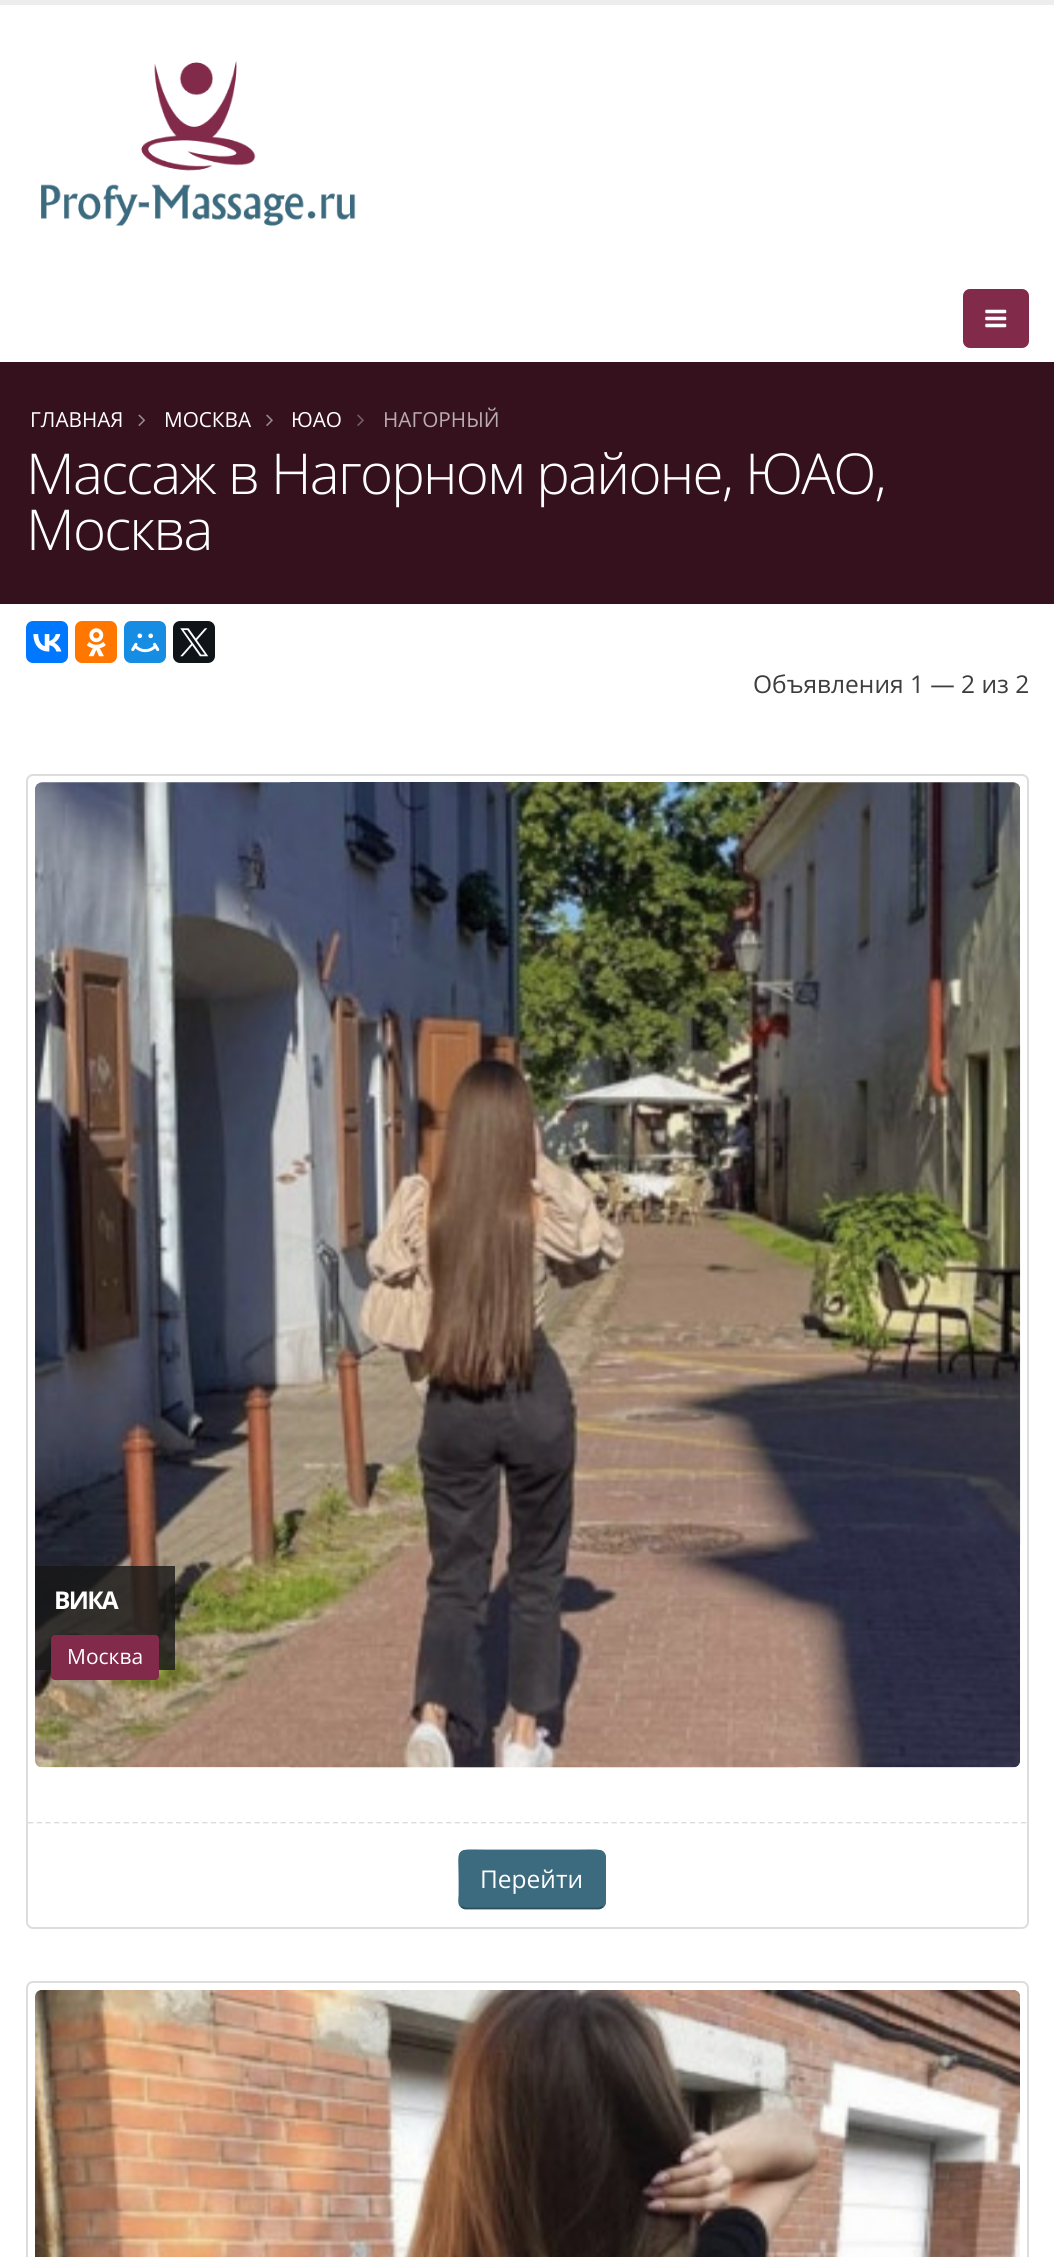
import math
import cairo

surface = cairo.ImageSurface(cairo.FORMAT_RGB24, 1054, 2257)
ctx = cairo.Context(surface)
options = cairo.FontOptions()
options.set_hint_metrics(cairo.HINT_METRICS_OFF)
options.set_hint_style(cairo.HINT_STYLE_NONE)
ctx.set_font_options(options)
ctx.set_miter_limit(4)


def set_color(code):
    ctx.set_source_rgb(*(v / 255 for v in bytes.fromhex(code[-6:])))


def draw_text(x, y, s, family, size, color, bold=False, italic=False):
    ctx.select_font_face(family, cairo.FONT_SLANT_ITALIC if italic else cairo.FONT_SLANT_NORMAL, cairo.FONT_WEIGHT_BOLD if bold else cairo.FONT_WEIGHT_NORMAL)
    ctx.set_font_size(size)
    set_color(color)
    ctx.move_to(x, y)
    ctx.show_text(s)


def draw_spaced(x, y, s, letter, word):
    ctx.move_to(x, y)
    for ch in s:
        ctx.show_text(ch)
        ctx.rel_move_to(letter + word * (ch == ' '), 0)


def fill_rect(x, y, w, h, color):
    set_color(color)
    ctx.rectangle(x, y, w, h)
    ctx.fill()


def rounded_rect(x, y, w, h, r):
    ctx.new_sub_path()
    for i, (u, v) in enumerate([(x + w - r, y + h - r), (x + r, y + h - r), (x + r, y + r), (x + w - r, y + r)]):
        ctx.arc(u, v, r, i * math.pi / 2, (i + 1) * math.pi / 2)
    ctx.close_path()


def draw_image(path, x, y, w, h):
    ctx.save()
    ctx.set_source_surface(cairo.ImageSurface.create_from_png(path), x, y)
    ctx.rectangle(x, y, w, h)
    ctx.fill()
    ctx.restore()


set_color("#ffffff")
ctx.paint()
fill_rect(0, 0, 1054, 5, "#ededed")
draw_image("assets/img1.png", 41, 61, 315, 165)
set_color("#822a4a")
rounded_rect(963, 289, 66, 59, 7)
ctx.fill()
draw_image("assets/img2.png", 985, 309, 22, 19)
fill_rect(0, 362, 1054, 242, "#35111e")
draw_text(30, 427, "ГЛАВНАЯ", "Open Sans", 20.75, "#ffffff")
draw_image("assets/img3.png", 138, 414, 8, 12)
draw_text(164, 427, "МОСКВА", "Open Sans", 20.75, "#ffffff")
draw_image("assets/img4.png", 266, 414, 7, 12)
draw_text(291, 427, "ЮАО", "Open Sans", 20.75, "#ffffff")
draw_image("assets/img5.png", 357, 414, 7, 12)
draw_text(383, 427, "НАГОРНЫЙ", "Open Sans", 20.75, "#b8acb0")
ctx.select_font_face("Open Sans Light")
ctx.set_font_size(56.4)
set_color("#ffffff")
draw_spaced(26, 494, "Массаж в Нагорном районе, ЮАО,", -1.75, 0)
draw_spaced(26, 550, "Москва", -1.75, 0)
set_color("#0077ff")
rounded_rect(26, 621, 42, 42, 7)
ctx.fill()
draw_image("assets/img6.png", 33, 634, 29, 18)
set_color("#ff7700")
rounded_rect(75, 621, 42, 42, 7)
ctx.fill()
draw_image("assets/img7.png", 86, 628, 20, 29)
set_color("#168de2")
rounded_rect(124, 621, 42, 42, 7)
ctx.fill()
draw_image("assets/img8.png", 131, 633, 29, 20)
set_color("#0f1419")
rounded_rect(173, 621, 42, 42, 7)
ctx.fill()
draw_image("assets/img9.png", 180, 628, 29, 29)
draw_text(753, 693, "Объявления 1 — 2 из 2", "Open Sans", 24.5, "#3d3d3d")
rounded_rect(27, 775, 1001, 1153, 6)
set_color("#dddddd")
ctx.stroke()
draw_image("assets/img10.png", 35, 782, 986, 986)
ctx.set_source_rgba(0.09, 0.09, 0.09, 0.8)
ctx.rectangle(35, 1566, 140, 104)
ctx.fill()
ctx.select_font_face("Open Sans", cairo.FONT_SLANT_NORMAL, cairo.FONT_WEIGHT_BOLD)
set_color("#ffffff")
draw_spaced(54, 1609, "ВИКА", -1.75, 0)
set_color("#822a4a")
rounded_rect(51, 1635, 108, 45, 4)
ctx.fill()
draw_text(67, 1664, "Москва", "Open Sans", 21, "#ffffff")
ctx.save()
ctx.rectangle(28, 1822, 999, 2)
ctx.clip()
ctx.new_path()
ctx.move_to(28, 1822.5)
ctx.line_to(1027, 1822.5)
set_color("#dbdbdb")
ctx.set_line_width(1.8)
ctx.set_dash([5.25, 3.46])
ctx.stroke()
ctx.restore()
set_color("#3c6b7f")
rounded_rect(459, 1850, 147, 59, 7)
ctx.fill()
ctx.new_path()
ctx.move_to(603, 1906.5)
ctx.curve_to(601.5, 1907.5, 600, 1908.5, 598.5, 1908.5)
ctx.line_to(465.5, 1908.5)
ctx.curve_to(464, 1908.5, 462.5, 1907.5, 461, 1906.5)
set_color("#2c4e5c")
ctx.set_line_width(1.8)
ctx.stroke()
ctx.new_path()
ctx.move_to(461, 1906.5)
ctx.curve_to(458, 1903.5, 459.5, 1898, 459.5, 1894.5)
ctx.line_to(459.5, 1879.5)
ctx.curve_to(459.5, 1846.5, 454, 1850.5, 487.5, 1850.5)
ctx.line_to(576.5, 1850.5)
ctx.curve_to(610, 1850.5, 604.5, 1846.5, 604.5, 1879.5)
ctx.line_to(604.5, 1894.5)
ctx.curve_to(604.5, 1898, 606, 1903.5, 603, 1906.5)
set_color("#3c6b7f")
ctx.stroke()
draw_text(480, 1888, "Перейти", "Open Sans", 24.5, "#ffffff")
rounded_rect(27, 1982, 1001, 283, 6)
set_color("#dddddd")
ctx.set_line_width(2)
ctx.stroke()
draw_image("assets/img11.png", 35, 1990, 985, 267)
surface.write_to_png("output.png")
